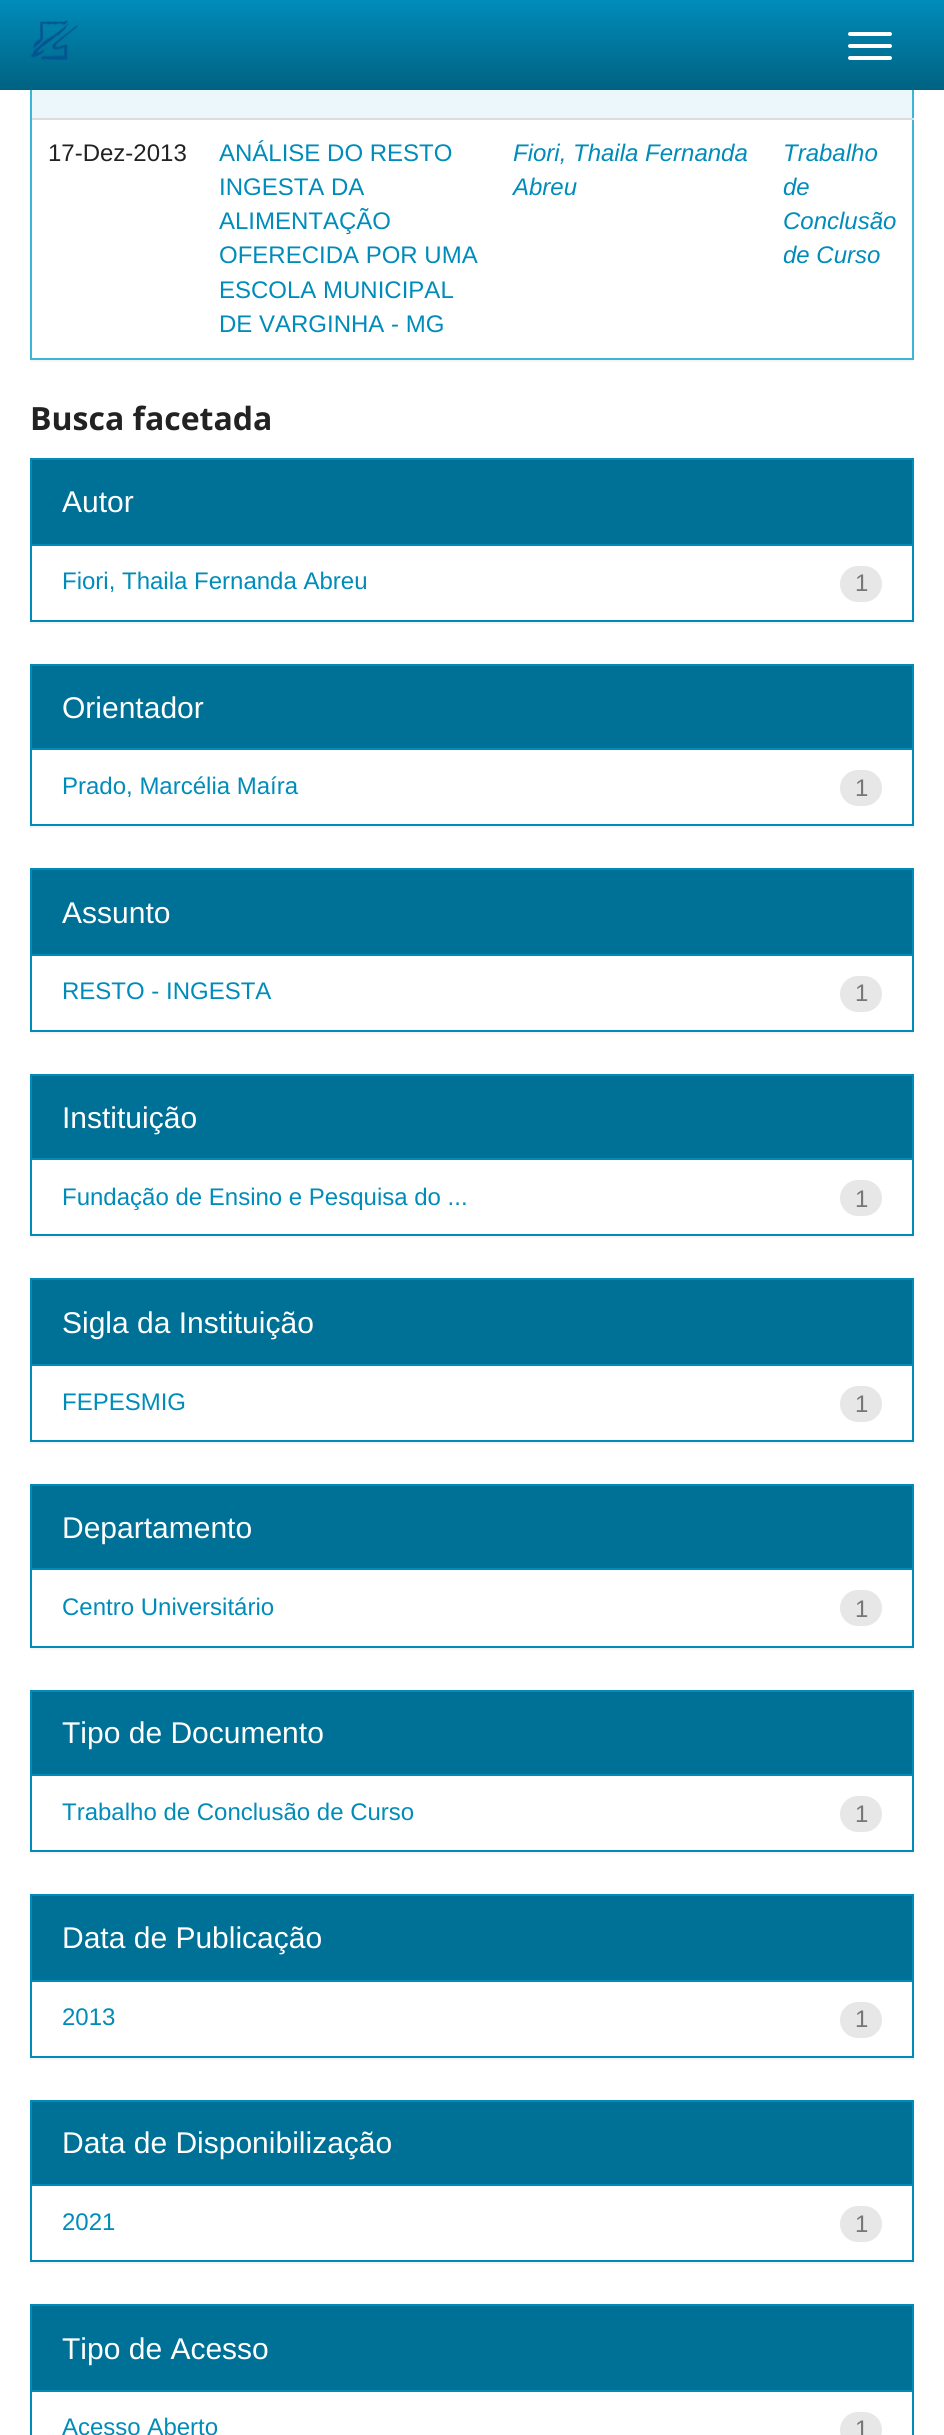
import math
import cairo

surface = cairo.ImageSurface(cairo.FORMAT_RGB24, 944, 2435)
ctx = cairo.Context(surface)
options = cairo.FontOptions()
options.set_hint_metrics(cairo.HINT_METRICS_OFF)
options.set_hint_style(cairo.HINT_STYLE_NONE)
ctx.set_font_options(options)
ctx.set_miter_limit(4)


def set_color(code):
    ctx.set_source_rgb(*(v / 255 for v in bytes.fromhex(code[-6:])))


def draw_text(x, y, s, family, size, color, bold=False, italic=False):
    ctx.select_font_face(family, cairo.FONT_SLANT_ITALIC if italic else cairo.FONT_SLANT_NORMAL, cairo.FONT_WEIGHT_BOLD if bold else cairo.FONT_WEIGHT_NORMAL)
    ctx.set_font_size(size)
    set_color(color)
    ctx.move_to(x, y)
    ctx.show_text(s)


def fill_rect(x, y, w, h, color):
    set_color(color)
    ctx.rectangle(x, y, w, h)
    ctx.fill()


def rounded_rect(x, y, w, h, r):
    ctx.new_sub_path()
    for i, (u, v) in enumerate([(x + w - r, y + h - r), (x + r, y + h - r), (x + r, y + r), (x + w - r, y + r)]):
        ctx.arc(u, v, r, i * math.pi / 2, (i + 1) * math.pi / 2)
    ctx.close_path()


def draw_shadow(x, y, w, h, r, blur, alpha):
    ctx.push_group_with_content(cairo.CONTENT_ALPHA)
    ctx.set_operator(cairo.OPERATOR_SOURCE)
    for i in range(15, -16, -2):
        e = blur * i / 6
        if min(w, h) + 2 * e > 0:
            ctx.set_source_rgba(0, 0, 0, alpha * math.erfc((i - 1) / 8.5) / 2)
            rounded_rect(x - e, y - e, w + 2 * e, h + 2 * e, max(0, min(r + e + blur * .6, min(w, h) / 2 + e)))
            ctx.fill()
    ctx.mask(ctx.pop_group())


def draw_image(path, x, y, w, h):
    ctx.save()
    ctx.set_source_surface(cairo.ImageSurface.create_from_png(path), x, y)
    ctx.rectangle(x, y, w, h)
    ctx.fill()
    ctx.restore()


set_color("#ffffff")
ctx.paint()
ctx.save()
ctx.rectangle(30, 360, 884, 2)
ctx.clip()
set_color("#000000")
draw_shadow(30, -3, 884, 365, 0, 1, 0.05)
ctx.restore()
ctx.rectangle(31, -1, 882, 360)
set_color("#3db5d8")
ctx.stroke()
gradient = cairo.LinearGradient(472, 0, 472, 90)
gradient.add_color_stop_rgba(0, 0, 0.549, 0.729, 1)
gradient.add_color_stop_rgba(1, 0, 0.384, 0.51, 1)
ctx.set_source(gradient)
ctx.rectangle(0, 0, 944, 90)
ctx.fill()
draw_image("assets/img1.png", 31, 20, 47, 40)
set_color("#ffffff")
rounded_rect(848, 32, 44, 4, 2)
ctx.fill()
rounded_rect(848, 44, 44, 4, 2)
ctx.fill()
rounded_rect(848, 56, 44, 4, 2)
ctx.fill()
fill_rect(32, 90, 880, 28, "#ebf7fb")
draw_text(48, 161, "17-Dez-2013", "Liberation Sans", 24, "#222222")
draw_text(219, 161, "ANÁLISE DO RESTO", "Liberation Sans", 24, "#008cba")
draw_text(219, 195, "INGESTA DA", "Liberation Sans", 24, "#008cba")
draw_text(219, 229, "ALIMENTAÇÃO", "Liberation Sans", 24, "#008cba")
draw_text(219, 263, "OFERECIDA POR UMA", "Liberation Sans", 24, "#008cba")
draw_text(219, 298, "ESCOLA MUNICIPAL", "Liberation Sans", 24, "#008cba")
draw_text(219, 332, "DE VARGINHA - MG", "Liberation Sans", 24, "#008cba")
draw_text(513, 161, "Fiori, Thaila Fernanda", "Liberation Sans", 24, "#008cba", italic=True)
draw_text(513, 195, "Abreu", "Liberation Sans", 24, "#008cba", italic=True)
fill_rect(32, 118, 882, 2, "#dddddd")
draw_text(783, 161, "Trabalho", "Liberation Sans", 24, "#008cba", italic=True)
draw_text(783, 195, "de", "Liberation Sans", 24, "#008cba", italic=True)
draw_text(783, 229, "Conclusão", "Liberation Sans", 24, "#008cba", italic=True)
draw_text(783, 263, "de Curso", "Liberation Sans", 24, "#008cba", italic=True)
draw_text(30, 430, "Busca facetada", "Open Sans", 32, "#222222", bold=True)
ctx.save()
ctx.rectangle(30, 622, 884, 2)
ctx.clip()
set_color("#000000")
draw_shadow(30, 460, 884, 164, 0, 1, 0.05)
ctx.restore()
ctx.rectangle(31, 459, 882, 162)
set_color("#008cba")
ctx.stroke()
fill_rect(32, 460, 880, 84, "#007196")
fill_rect(32, 544, 880, 2, "#008cba")
draw_text(62, 512, "Autor", "Liberation Sans", 30, "#ffffff")
draw_text(62, 589, "Fiori, Thaila Fernanda Abreu", "Liberation Sans", 24, "#008cba")
set_color("#e7e7e7")
rounded_rect(840, 566, 42, 36, 18)
ctx.fill()
draw_text(855, 591, "1", "Liberation Sans", 24, "#777777")
ctx.save()
ctx.rectangle(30, 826, 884, 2)
ctx.clip()
set_color("#000000")
draw_shadow(30, 666, 884, 162, 0, 1, 0.05)
ctx.restore()
ctx.rectangle(31, 665, 882, 160)
set_color("#008cba")
ctx.stroke()
fill_rect(32, 666, 880, 82, "#007196")
fill_rect(32, 748, 880, 2, "#008cba")
draw_text(62, 718, "Orientador", "Liberation Sans", 30, "#ffffff")
draw_text(62, 794, "Prado, Marcélia Maíra", "Liberation Sans", 24, "#008cba")
set_color("#e7e7e7")
rounded_rect(840, 770, 42, 36, 18)
ctx.fill()
draw_text(855, 796, "1", "Liberation Sans", 24, "#777777")
ctx.save()
ctx.rectangle(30, 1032, 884, 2)
ctx.clip()
set_color("#000000")
draw_shadow(30, 870, 884, 164, 0, 1, 0.05)
ctx.restore()
ctx.rectangle(31, 869, 882, 162)
set_color("#008cba")
ctx.stroke()
fill_rect(32, 870, 880, 84, "#007196")
fill_rect(32, 954, 880, 2, "#008cba")
draw_text(62, 923, "Assunto", "Liberation Sans", 30, "#ffffff")
draw_text(62, 999, "RESTO - INGESTA", "Liberation Sans", 24, "#008cba")
set_color("#e7e7e7")
rounded_rect(840, 976, 42, 36, 18)
ctx.fill()
draw_text(855, 1001, "1", "Liberation Sans", 24, "#777777")
ctx.save()
ctx.rectangle(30, 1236, 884, 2)
ctx.clip()
set_color("#000000")
draw_shadow(30, 1076, 884, 162, 0, 1, 0.05)
ctx.restore()
ctx.rectangle(31, 1075, 882, 160)
set_color("#008cba")
ctx.stroke()
fill_rect(32, 1076, 880, 82, "#007196")
fill_rect(32, 1158, 880, 2, "#008cba")
draw_text(62, 1128, "Instituição", "Liberation Sans", 30, "#ffffff")
draw_text(62, 1205, "Fundação de Ensino e Pesquisa do ...", "Liberation Sans", 24, "#008cba")
set_color("#e7e7e7")
rounded_rect(840, 1180, 42, 36, 18)
ctx.fill()
draw_text(855, 1207, "1", "Liberation Sans", 24, "#777777")
ctx.save()
ctx.rectangle(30, 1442, 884, 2)
ctx.clip()
set_color("#000000")
draw_shadow(30, 1280, 884, 164, 0, 1, 0.05)
ctx.restore()
ctx.rectangle(31, 1279, 882, 162)
set_color("#008cba")
ctx.stroke()
fill_rect(32, 1280, 880, 84, "#007196")
fill_rect(32, 1364, 880, 2, "#008cba")
draw_text(62, 1333, "Sigla da Instituição", "Liberation Sans", 30, "#ffffff")
draw_text(62, 1410, "FEPESMIG", "Liberation Sans", 24, "#008cba")
set_color("#e7e7e7")
rounded_rect(840, 1386, 42, 36, 18)
ctx.fill()
draw_text(855, 1412, "1", "Liberation Sans", 24, "#777777")
ctx.save()
ctx.rectangle(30, 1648, 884, 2)
ctx.clip()
set_color("#000000")
draw_shadow(30, 1486, 884, 164, 0, 1, 0.05)
ctx.restore()
ctx.rectangle(31, 1485, 882, 162)
set_color("#008cba")
ctx.stroke()
fill_rect(32, 1486, 880, 82, "#007196")
fill_rect(32, 1568, 880, 2, "#008cba")
draw_text(62, 1538, "Departamento", "Liberation Sans", 30, "#ffffff")
draw_text(62, 1615, "Centro Universitário", "Liberation Sans", 24, "#008cba")
set_color("#e7e7e7")
rounded_rect(840, 1590, 42, 36, 18)
ctx.fill()
draw_text(855, 1617, "1", "Liberation Sans", 24, "#777777")
ctx.save()
ctx.rectangle(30, 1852, 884, 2)
ctx.clip()
set_color("#000000")
draw_shadow(30, 1692, 884, 162, 0, 1, 0.05)
ctx.restore()
ctx.rectangle(31, 1691, 882, 160)
set_color("#008cba")
ctx.stroke()
fill_rect(32, 1692, 880, 82, "#007196")
fill_rect(32, 1774, 880, 2, "#008cba")
draw_text(62, 1743, "Tipo de Documento", "Liberation Sans", 30, "#ffffff")
draw_text(62, 1820, "Trabalho de Conclusão de Curso", "Liberation Sans", 24, "#008cba")
set_color("#e7e7e7")
rounded_rect(840, 1796, 42, 36, 18)
ctx.fill()
draw_text(855, 1822, "1", "Liberation Sans", 24, "#777777")
ctx.save()
ctx.rectangle(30, 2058, 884, 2)
ctx.clip()
set_color("#000000")
draw_shadow(30, 1896, 884, 164, 0, 1, 0.05)
ctx.restore()
ctx.rectangle(31, 1895, 882, 162)
set_color("#008cba")
ctx.stroke()
fill_rect(32, 1896, 880, 84, "#007196")
fill_rect(32, 1980, 880, 2, "#008cba")
draw_text(62, 1948, "Data de Publicação", "Liberation Sans", 30, "#ffffff")
draw_text(62, 2025, "2013", "Liberation Sans", 24, "#008cba")
set_color("#e7e7e7")
rounded_rect(840, 2002, 42, 36, 18)
ctx.fill()
draw_text(855, 2027, "1", "Liberation Sans", 24, "#777777")
ctx.save()
ctx.rectangle(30, 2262, 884, 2)
ctx.clip()
set_color("#000000")
draw_shadow(30, 2102, 884, 162, 0, 1, 0.05)
ctx.restore()
ctx.rectangle(31, 2101, 882, 160)
set_color("#008cba")
ctx.stroke()
fill_rect(32, 2102, 880, 82, "#007196")
fill_rect(32, 2184, 880, 2, "#008cba")
draw_text(62, 2153, "Data de Disponibilização", "Liberation Sans", 30, "#ffffff")
draw_text(62, 2230, "2021", "Liberation Sans", 24, "#008cba")
set_color("#e7e7e7")
rounded_rect(840, 2206, 42, 36, 18)
ctx.fill()
draw_text(855, 2232, "1", "Liberation Sans", 24, "#777777")
ctx.rectangle(31, 2305, 882, 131)
set_color("#008cba")
ctx.stroke()
fill_rect(32, 2306, 880, 84, "#007196")
fill_rect(32, 2390, 880, 2, "#008cba")
draw_text(62, 2359, "Tipo de Acesso", "Liberation Sans", 30, "#ffffff")
draw_text(62, 2435, "Acesso Aberto", "Liberation Sans", 24, "#008cba")
set_color("#e7e7e7")
rounded_rect(840, 2412, 42, 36, 18)
ctx.fill()
draw_text(855, 2437, "1", "Liberation Sans", 24, "#777777")
surface.write_to_png("output.png")
